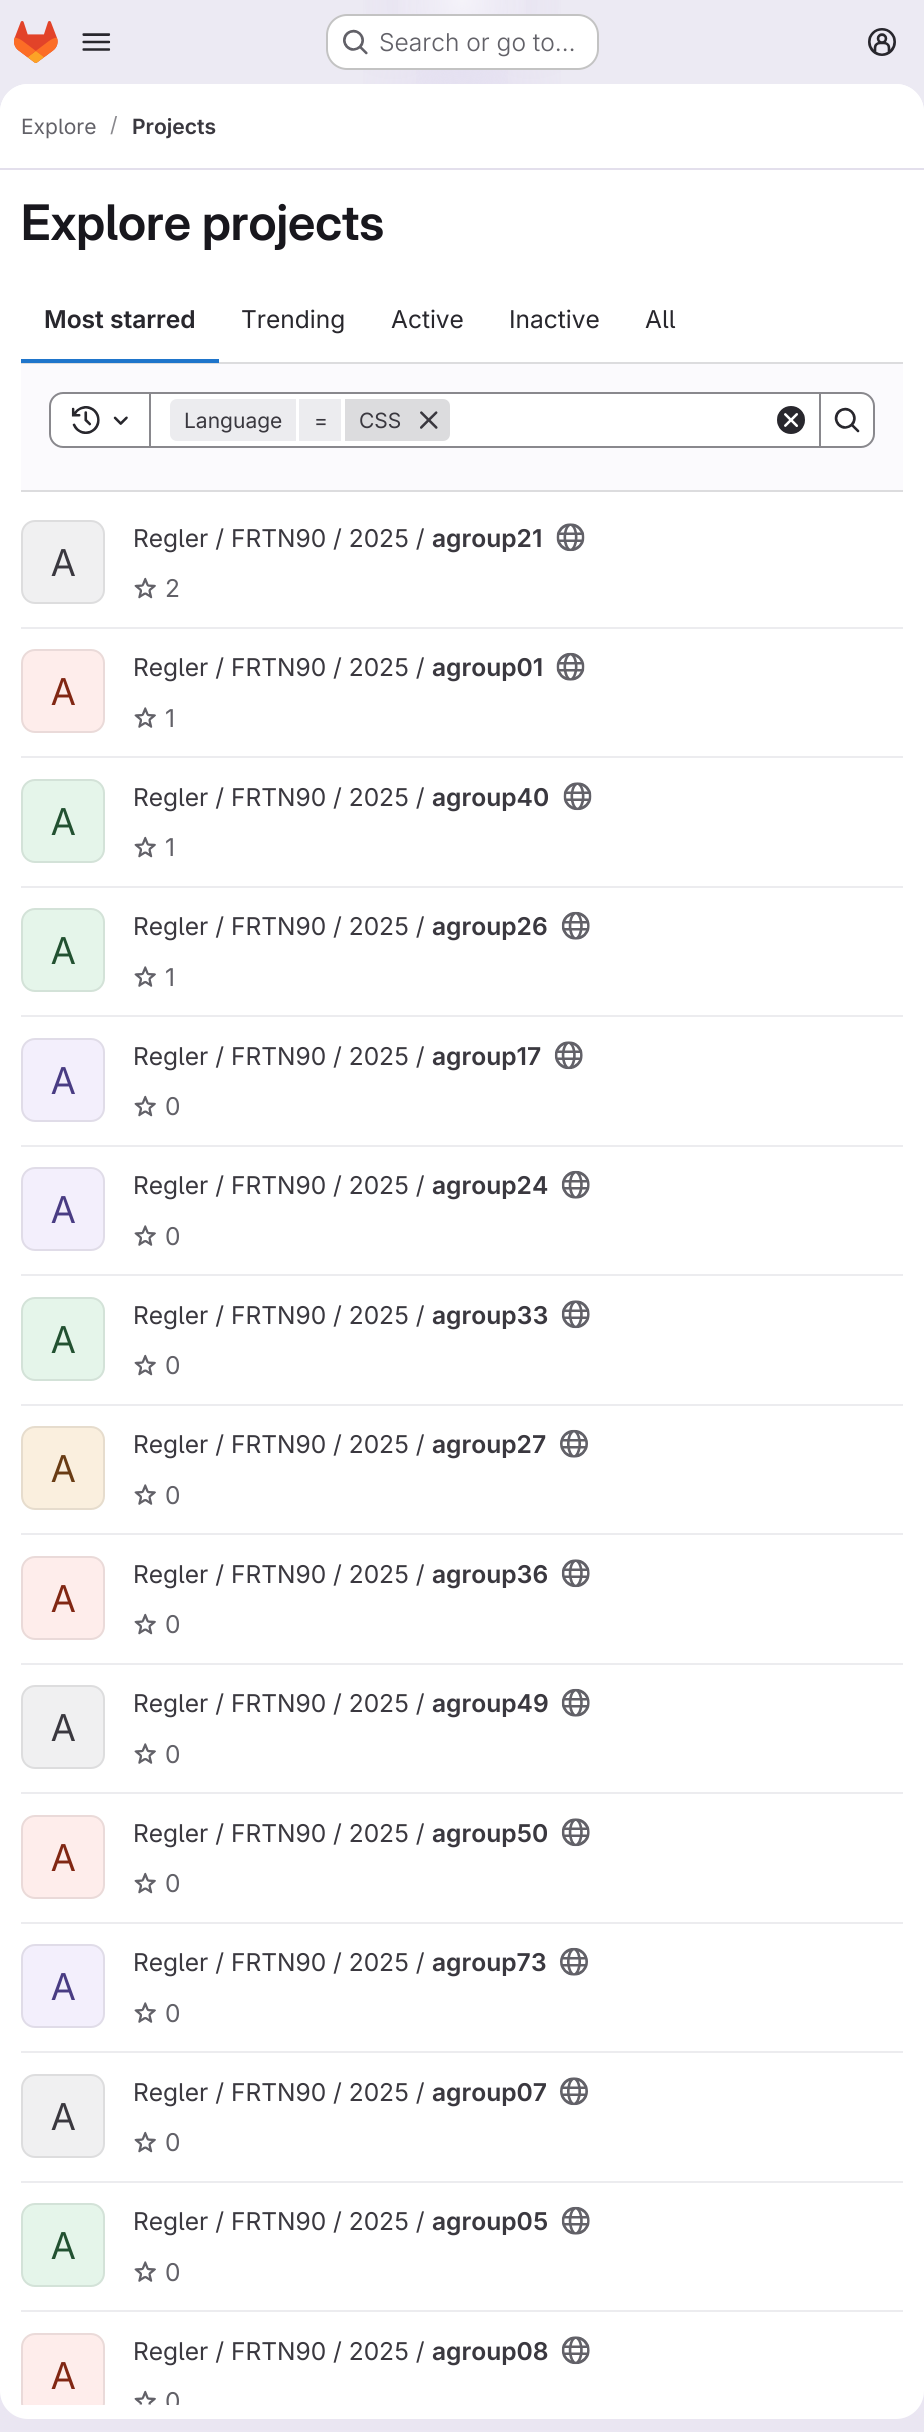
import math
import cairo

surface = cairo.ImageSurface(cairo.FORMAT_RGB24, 924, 2432)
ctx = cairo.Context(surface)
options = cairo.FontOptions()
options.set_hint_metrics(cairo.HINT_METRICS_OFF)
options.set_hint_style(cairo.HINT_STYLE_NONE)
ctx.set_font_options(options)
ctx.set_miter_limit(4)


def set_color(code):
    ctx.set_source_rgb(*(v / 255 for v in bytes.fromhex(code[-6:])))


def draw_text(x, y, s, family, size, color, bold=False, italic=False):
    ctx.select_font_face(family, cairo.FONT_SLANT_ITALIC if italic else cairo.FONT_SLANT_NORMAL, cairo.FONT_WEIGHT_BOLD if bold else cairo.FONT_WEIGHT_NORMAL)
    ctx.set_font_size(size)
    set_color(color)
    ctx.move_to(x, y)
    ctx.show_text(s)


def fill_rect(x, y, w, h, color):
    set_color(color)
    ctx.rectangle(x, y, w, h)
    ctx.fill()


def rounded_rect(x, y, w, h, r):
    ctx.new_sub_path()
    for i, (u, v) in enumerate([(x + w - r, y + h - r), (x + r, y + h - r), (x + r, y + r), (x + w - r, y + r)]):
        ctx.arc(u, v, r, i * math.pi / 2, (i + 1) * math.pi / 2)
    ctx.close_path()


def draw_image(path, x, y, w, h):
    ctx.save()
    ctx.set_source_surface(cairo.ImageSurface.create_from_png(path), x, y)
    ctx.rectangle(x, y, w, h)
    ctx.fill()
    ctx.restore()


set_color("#ffffff")
ctx.paint()
gradient = cairo.LinearGradient(684, 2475, 240, -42)
gradient.add_color_stop_rgba(0, 0.918, 0.902, 0.949, 1)
gradient.add_color_stop_rgba(0.7, 0.925, 0.918, 0.953, 1)
ctx.set_source(gradient)
ctx.rectangle(0, 0, 924, 2432)
ctx.fill()
gradient = cairo.RadialGradient(0, 0, 0, 0, 0, 1)
gradient.set_matrix(cairo.Matrix(1 / 462, 0, 0, 1 / 2433, -1 * 462 / 462, -1 * 0 / 2433))
gradient.add_color_stop_rgba(0, 0.902, 0.882, 0.945, 1)
gradient.add_color_stop_rgba(0.27, 0.902, 0.882, 0.945, 0)
ctx.set_source(gradient)
ctx.rectangle(363, 0, 198, 84)
ctx.fill()
gradient = cairo.RadialGradient(0, 0, 0, 0, 0, 1)
gradient.set_matrix(cairo.Matrix(1 / 462, 0, 0, 1 / 2433, -1 * 462 / 462, -1 * 0 / 2433))
gradient.add_color_stop_rgba(0, 0.898, 0.882, 0.945, 1)
gradient.add_color_stop_rgba(0.19, 0.898, 0.882, 0.945, 0)
ctx.set_source(gradient)
ctx.rectangle(416, 0, 92, 84)
ctx.fill()
gradient = cairo.RadialGradient(462, 0, 0, 462, 0, 2476)
gradient.add_color_stop_rgba(0, 1, 1, 1, 0.6)
gradient.add_color_stop_rgba(0.03, 1, 1, 1, 0)
ctx.set_source(gradient)
ctx.rectangle(398, 0, 128, 14)
ctx.fill()
draw_image("assets/img1.png", 14, 21, 44, 42)
draw_image("assets/img2.png", 82, 33, 29, 18)
set_color("#ffffff")
rounded_rect(326, 14, 273, 56, 21)
ctx.fill()
rounded_rect(327, 15, 271, 54, 20)
ctx.set_source_rgba(0.02, 0.02, 0.024, 0.24)
ctx.stroke()
draw_image("assets/img3.png", 343, 29, 25, 26)
draw_text(379, 51, "Search or go to…", "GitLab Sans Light", 24.5, "#626168")
draw_image("assets/img4.png", 868, 28, 28, 28)
set_color("#ffffff")
rounded_rect(0, 84, 924, 2335, 28)
ctx.fill()
ctx.new_path()
ctx.move_to(28, 84)
ctx.line_to(896, 84)
ctx.curve_to(911.5, 84, 924, 96.5, 924, 112)
ctx.line_to(924, 170)
ctx.line_to(0, 170)
ctx.line_to(0, 112)
ctx.curve_to(0, 96.5, 12.5, 84, 28, 84)
ctx.close_path()
ctx.fill()
fill_rect(0, 168, 924, 2, "#e3dfec")
draw_text(21, 134, "Explore", "GitLab Sans", 21, "#626168")
draw_text(110, 132, "/", "GitLab Sans", 21, "#89888d")
draw_text(132, 134, "Projects", "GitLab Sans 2 SemiBold", 21, "#3a383f")
draw_text(21, 240, "Explore projects", "GitLab Sans SemiBold", 49, "#18171d")
draw_text(44, 328, "Most starred", "GitLab Sans 2 SemiBold", 24.5, "#28272d")
fill_rect(21, 362, 882, 2, "#dcdcde")
fill_rect(21, 359, 198, 4, "#1f75cb")
draw_text(241, 328, "Trending", "GitLab Sans", 24.5, "#28272d")
draw_text(391, 328, "Active", "GitLab Sans", 24.5, "#28272d")
draw_text(509, 328, "Inactive", "GitLab Sans", 24.5, "#28272d")
draw_text(645, 328, "All", "GitLab Sans", 24.5, "#28272d")
fill_rect(21, 364, 882, 126, "#fbfafd")
fill_rect(21, 490, 882, 2, "#dcdcde")
set_color("#ffffff")
ctx.rectangle(150, 393, 670, 54)
ctx.fill_preserve()
set_color("#89888d")
ctx.stroke()
set_color("#ffffff")
ctx.new_path()
ctx.move_to(63, 393)
ctx.line_to(150, 393)
ctx.line_to(150, 447)
ctx.line_to(63, 447)
ctx.curve_to(56, 447, 50, 441, 50, 434)
ctx.line_to(50, 406)
ctx.curve_to(50, 399, 56, 393, 63, 393)
ctx.close_path()
ctx.fill_preserve()
set_color("#89888d")
ctx.stroke()
draw_image("assets/img5.png", 71, 406, 29, 28)
draw_image("assets/img6.png", 113, 416, 15, 9)
set_color("#ececef")
ctx.new_path()
ctx.move_to(177, 399)
ctx.line_to(296, 399)
ctx.line_to(296, 441)
ctx.line_to(177, 441)
ctx.curve_to(173, 441, 170, 438, 170, 434)
ctx.line_to(170, 406)
ctx.curve_to(170, 402, 173, 399, 177, 399)
ctx.close_path()
ctx.fill()
draw_text(184, 428, "Language", "GitLab Sans", 21, "#3a383f")
fill_rect(299, 399, 42, 42, "#ececef")
draw_text(314, 428, "=", "GitLab Sans", 21, "#3a383f")
set_color("#dcdcde")
ctx.new_path()
ctx.move_to(345, 399)
ctx.line_to(443, 399)
ctx.curve_to(447, 399, 450, 402, 450, 406)
ctx.line_to(450, 434)
ctx.curve_to(450, 438, 447, 441, 443, 441)
ctx.line_to(345, 441)
ctx.close_path()
ctx.fill()
draw_text(359, 428, "CSS", "GitLab Sans", 21, "#3a383f")
draw_image("assets/img7.png", 420, 411, 18, 18)
draw_image("assets/img8.png", 777, 406, 28, 28)
set_color("#ffffff")
ctx.new_path()
ctx.move_to(820, 393)
ctx.line_to(861, 393)
ctx.curve_to(868, 393, 874, 399, 874, 406)
ctx.line_to(874, 434)
ctx.curve_to(874, 441, 868, 447, 861, 447)
ctx.line_to(820, 447)
ctx.close_path()
ctx.fill_preserve()
set_color("#89888d")
ctx.stroke()
draw_image("assets/img9.png", 834, 407, 26, 26)
fill_rect(21, 627, 882, 2, "#ececef")
set_color("#f0f0f1")
rounded_rect(21, 520, 84, 84, 14)
ctx.fill()
rounded_rect(22, 521, 82, 82, 13)
ctx.set_source_rgba(0.02, 0.02, 0.024, 0.08)
ctx.stroke()
draw_text(51, 576, "A", "GitLab Sans 2", 37, "#3a383f")
draw_text(133, 547, "Regler / FRTN90 / 2025 /", "GitLab Sans", 24.5, "#3a383f")
draw_text(432, 547, "agroup21", "GitLab Sans 2 SemiBold", 24.5, "#3a383f")
draw_image("assets/img10.png", 556, 523, 29, 29)
draw_image("assets/img11.png", 134, 577, 22, 22)
draw_text(165, 597, "2", "GitLab Sans", 24.5, "#626168")
fill_rect(21, 756, 882, 2, "#ececef")
set_color("#feedeb")
rounded_rect(21, 649, 84, 84, 14)
ctx.fill()
rounded_rect(22, 650, 82, 82, 13)
ctx.set_source_rgba(0.02, 0.02, 0.024, 0.08)
ctx.stroke()
draw_text(51, 705, "A", "GitLab Sans 2", 37, "#812713")
draw_text(133, 676, "Regler / FRTN90 / 2025 /", "GitLab Sans", 24.5, "#3a383f")
draw_text(432, 676, "agroup01", "GitLab Sans 2 SemiBold", 24.5, "#3a383f")
draw_image("assets/img12.png", 556, 652, 29, 29)
draw_image("assets/img13.png", 134, 707, 22, 21)
draw_text(165, 727, "1", "GitLab Sans", 24.5, "#626168")
fill_rect(21, 886, 882, 2, "#ececef")
set_color("#e5f5ea")
rounded_rect(21, 779, 84, 84, 14)
ctx.fill()
rounded_rect(22, 780, 82, 82, 13)
ctx.set_source_rgba(0.02, 0.02, 0.024, 0.08)
ctx.stroke()
draw_text(51, 835, "A", "GitLab Sans 2", 37, "#225131")
draw_text(133, 806, "Regler / FRTN90 / 2025 /", "GitLab Sans", 24.5, "#3a383f")
draw_text(432, 806, "agroup40", "GitLab Sans 2 SemiBold", 24.5, "#3a383f")
draw_image("assets/img10.png", 563, 782, 29, 29)
draw_image("assets/img11.png", 134, 836, 22, 22)
draw_text(165, 856, "1", "GitLab Sans", 24.5, "#626168")
fill_rect(21, 1015, 882, 2, "#ececef")
set_color("#e5f5ea")
rounded_rect(21, 908, 84, 84, 14)
ctx.fill()
rounded_rect(22, 909, 82, 82, 13)
ctx.set_source_rgba(0.02, 0.02, 0.024, 0.08)
ctx.stroke()
draw_text(51, 964, "A", "GitLab Sans 2", 37, "#225131")
draw_text(133, 935, "Regler / FRTN90 / 2025 /", "GitLab Sans", 24.5, "#3a383f")
draw_text(432, 935, "agroup26", "GitLab Sans 2 SemiBold", 24.5, "#3a383f")
draw_image("assets/img14.png", 561, 911, 29, 29)
draw_image("assets/img13.png", 134, 966, 22, 21)
draw_text(165, 986, "1", "GitLab Sans", 24.5, "#626168")
fill_rect(21, 1145, 882, 2, "#ececef")
set_color("#f3effc")
rounded_rect(21, 1038, 84, 84, 14)
ctx.fill()
rounded_rect(22, 1039, 82, 82, 13)
ctx.set_source_rgba(0.02, 0.02, 0.024, 0.08)
ctx.stroke()
draw_text(51, 1094, "A", "GitLab Sans 2", 37, "#493c83")
draw_text(133, 1065, "Regler / FRTN90 / 2025 /", "GitLab Sans", 24.5, "#3a383f")
draw_text(432, 1065, "agroup17", "GitLab Sans 2 SemiBold", 24.5, "#3a383f")
draw_image("assets/img15.png", 554, 1041, 29, 29)
draw_image("assets/img11.png", 134, 1095, 22, 22)
draw_text(165, 1115, "0", "GitLab Sans", 24.5, "#626168")
fill_rect(21, 1274, 882, 2, "#ececef")
set_color("#f3effc")
rounded_rect(21, 1167, 84, 84, 14)
ctx.fill()
rounded_rect(22, 1168, 82, 82, 13)
ctx.set_source_rgba(0.02, 0.02, 0.024, 0.08)
ctx.stroke()
draw_text(51, 1223, "A", "GitLab Sans 2", 37, "#493c83")
draw_text(133, 1194, "Regler / FRTN90 / 2025 /", "GitLab Sans", 24.5, "#3a383f")
draw_text(432, 1194, "agroup24", "GitLab Sans 2 SemiBold", 24.5, "#3a383f")
draw_image("assets/img14.png", 561, 1170, 29, 29)
draw_image("assets/img13.png", 134, 1225, 22, 21)
draw_text(165, 1245, "0", "GitLab Sans", 24.5, "#626168")
fill_rect(21, 1404, 882, 2, "#ececef")
set_color("#e5f5ea")
rounded_rect(21, 1297, 84, 84, 14)
ctx.fill()
rounded_rect(22, 1298, 82, 82, 13)
ctx.set_source_rgba(0.02, 0.02, 0.024, 0.08)
ctx.stroke()
draw_text(51, 1353, "A", "GitLab Sans 2", 37, "#225131")
draw_text(133, 1324, "Regler / FRTN90 / 2025 /", "GitLab Sans", 24.5, "#3a383f")
draw_text(432, 1324, "agroup33", "GitLab Sans 2 SemiBold", 24.5, "#3a383f")
draw_image("assets/img15.png", 561, 1300, 29, 29)
draw_image("assets/img11.png", 134, 1354, 22, 22)
draw_text(165, 1374, "0", "GitLab Sans", 24.5, "#626168")
fill_rect(21, 1533, 882, 2, "#ececef")
set_color("#faefde")
rounded_rect(21, 1426, 84, 84, 14)
ctx.fill()
rounded_rect(22, 1427, 82, 82, 13)
ctx.set_source_rgba(0.02, 0.02, 0.024, 0.08)
ctx.stroke()
draw_text(51, 1482, "A", "GitLab Sans 2", 37, "#693c14")
draw_text(133, 1453, "Regler / FRTN90 / 2025 /", "GitLab Sans", 24.5, "#3a383f")
draw_text(432, 1453, "agroup27", "GitLab Sans 2 SemiBold", 24.5, "#3a383f")
draw_image("assets/img16.png", 560, 1429, 28, 29)
draw_image("assets/img13.png", 134, 1484, 22, 21)
draw_text(165, 1504, "0", "GitLab Sans", 24.5, "#626168")
fill_rect(21, 1663, 882, 2, "#ececef")
set_color("#feedeb")
rounded_rect(21, 1556, 84, 84, 14)
ctx.fill()
rounded_rect(22, 1557, 82, 82, 13)
ctx.set_source_rgba(0.02, 0.02, 0.024, 0.08)
ctx.stroke()
draw_text(51, 1612, "A", "GitLab Sans 2", 37, "#812713")
draw_text(133, 1583, "Regler / FRTN90 / 2025 /", "GitLab Sans", 24.5, "#3a383f")
draw_text(432, 1583, "agroup36", "GitLab Sans 2 SemiBold", 24.5, "#3a383f")
draw_image("assets/img15.png", 561, 1559, 29, 29)
draw_image("assets/img11.png", 134, 1613, 22, 22)
draw_text(165, 1633, "0", "GitLab Sans", 24.5, "#626168")
fill_rect(21, 1792, 882, 2, "#ececef")
set_color("#f0f0f1")
rounded_rect(21, 1685, 84, 84, 14)
ctx.fill()
rounded_rect(22, 1686, 82, 82, 13)
ctx.set_source_rgba(0.02, 0.02, 0.024, 0.08)
ctx.stroke()
draw_text(51, 1741, "A", "GitLab Sans 2", 37, "#3a383f")
draw_text(133, 1712, "Regler / FRTN90 / 2025 /", "GitLab Sans", 24.5, "#3a383f")
draw_text(432, 1712, "agroup49", "GitLab Sans 2 SemiBold", 24.5, "#3a383f")
draw_image("assets/img14.png", 561, 1688, 29, 29)
draw_image("assets/img13.png", 134, 1743, 22, 21)
draw_text(165, 1763, "0", "GitLab Sans", 24.5, "#626168")
fill_rect(21, 1922, 882, 2, "#ececef")
set_color("#feedeb")
rounded_rect(21, 1815, 84, 84, 14)
ctx.fill()
rounded_rect(22, 1816, 82, 82, 13)
ctx.set_source_rgba(0.02, 0.02, 0.024, 0.08)
ctx.stroke()
draw_text(51, 1871, "A", "GitLab Sans 2", 37, "#812713")
draw_text(133, 1842, "Regler / FRTN90 / 2025 /", "GitLab Sans", 24.5, "#3a383f")
draw_text(432, 1842, "agroup50", "GitLab Sans 2 SemiBold", 24.5, "#3a383f")
draw_image("assets/img15.png", 561, 1818, 29, 29)
draw_image("assets/img11.png", 134, 1872, 22, 22)
draw_text(165, 1892, "0", "GitLab Sans", 24.5, "#626168")
fill_rect(21, 2051, 882, 2, "#ececef")
set_color("#f3effc")
rounded_rect(21, 1944, 84, 84, 14)
ctx.fill()
rounded_rect(22, 1945, 82, 82, 13)
ctx.set_source_rgba(0.02, 0.02, 0.024, 0.08)
ctx.stroke()
draw_text(51, 2000, "A", "GitLab Sans 2", 37, "#493c83")
draw_text(133, 1971, "Regler / FRTN90 / 2025 /", "GitLab Sans", 24.5, "#3a383f")
draw_text(432, 1971, "agroup73", "GitLab Sans 2 SemiBold", 24.5, "#3a383f")
draw_image("assets/img16.png", 560, 1947, 28, 29)
draw_image("assets/img13.png", 134, 2002, 22, 21)
draw_text(165, 2022, "0", "GitLab Sans", 24.5, "#626168")
fill_rect(21, 2181, 882, 2, "#ececef")
set_color("#f0f0f1")
rounded_rect(21, 2074, 84, 84, 14)
ctx.fill()
rounded_rect(22, 2075, 82, 82, 13)
ctx.set_source_rgba(0.02, 0.02, 0.024, 0.08)
ctx.stroke()
draw_text(51, 2130, "A", "GitLab Sans 2", 37, "#3a383f")
draw_text(133, 2101, "Regler / FRTN90 / 2025 /", "GitLab Sans", 24.5, "#3a383f")
draw_text(432, 2101, "agroup07", "GitLab Sans 2 SemiBold", 24.5, "#3a383f")
draw_image("assets/img17.png", 560, 2077, 28, 29)
draw_image("assets/img11.png", 134, 2131, 22, 22)
draw_text(165, 2151, "0", "GitLab Sans", 24.5, "#626168")
fill_rect(21, 2310, 882, 2, "#ececef")
set_color("#e5f5ea")
rounded_rect(21, 2203, 84, 84, 14)
ctx.fill()
rounded_rect(22, 2204, 82, 82, 13)
ctx.set_source_rgba(0.02, 0.02, 0.024, 0.08)
ctx.stroke()
draw_text(51, 2259, "A", "GitLab Sans 2", 37, "#225131")
draw_text(133, 2230, "Regler / FRTN90 / 2025 /", "GitLab Sans", 24.5, "#3a383f")
draw_text(432, 2230, "agroup05", "GitLab Sans 2 SemiBold", 24.5, "#3a383f")
draw_image("assets/img14.png", 561, 2206, 29, 29)
draw_image("assets/img13.png", 134, 2261, 22, 21)
draw_text(165, 2281, "0", "GitLab Sans", 24.5, "#626168")
ctx.save()
ctx.rectangle(0, 170, 924, 2235)
ctx.clip()
set_color("#feedeb")
rounded_rect(21, 2333, 84, 84, 14)
ctx.fill()
rounded_rect(22, 2334, 82, 82, 13)
ctx.set_source_rgba(0.02, 0.02, 0.024, 0.08)
ctx.stroke()
ctx.restore()
draw_text(51, 2389, "A", "GitLab Sans 2", 37, "#812713")
draw_text(133, 2360, "Regler / FRTN90 / 2025 /", "GitLab Sans", 24.5, "#3a383f")
draw_text(432, 2360, "agroup08", "GitLab Sans 2 SemiBold", 24.5, "#3a383f")
draw_image("assets/img15.png", 561, 2336, 29, 29)
draw_image("assets/img18.png", 134, 2390, 22, 15)
ctx.save()
ctx.rectangle(0, 170, 924, 2235)
ctx.clip()
draw_text(165, 2410, "0", "GitLab Sans", 24.5, "#626168")
ctx.restore()
surface.write_to_png("output.png")
